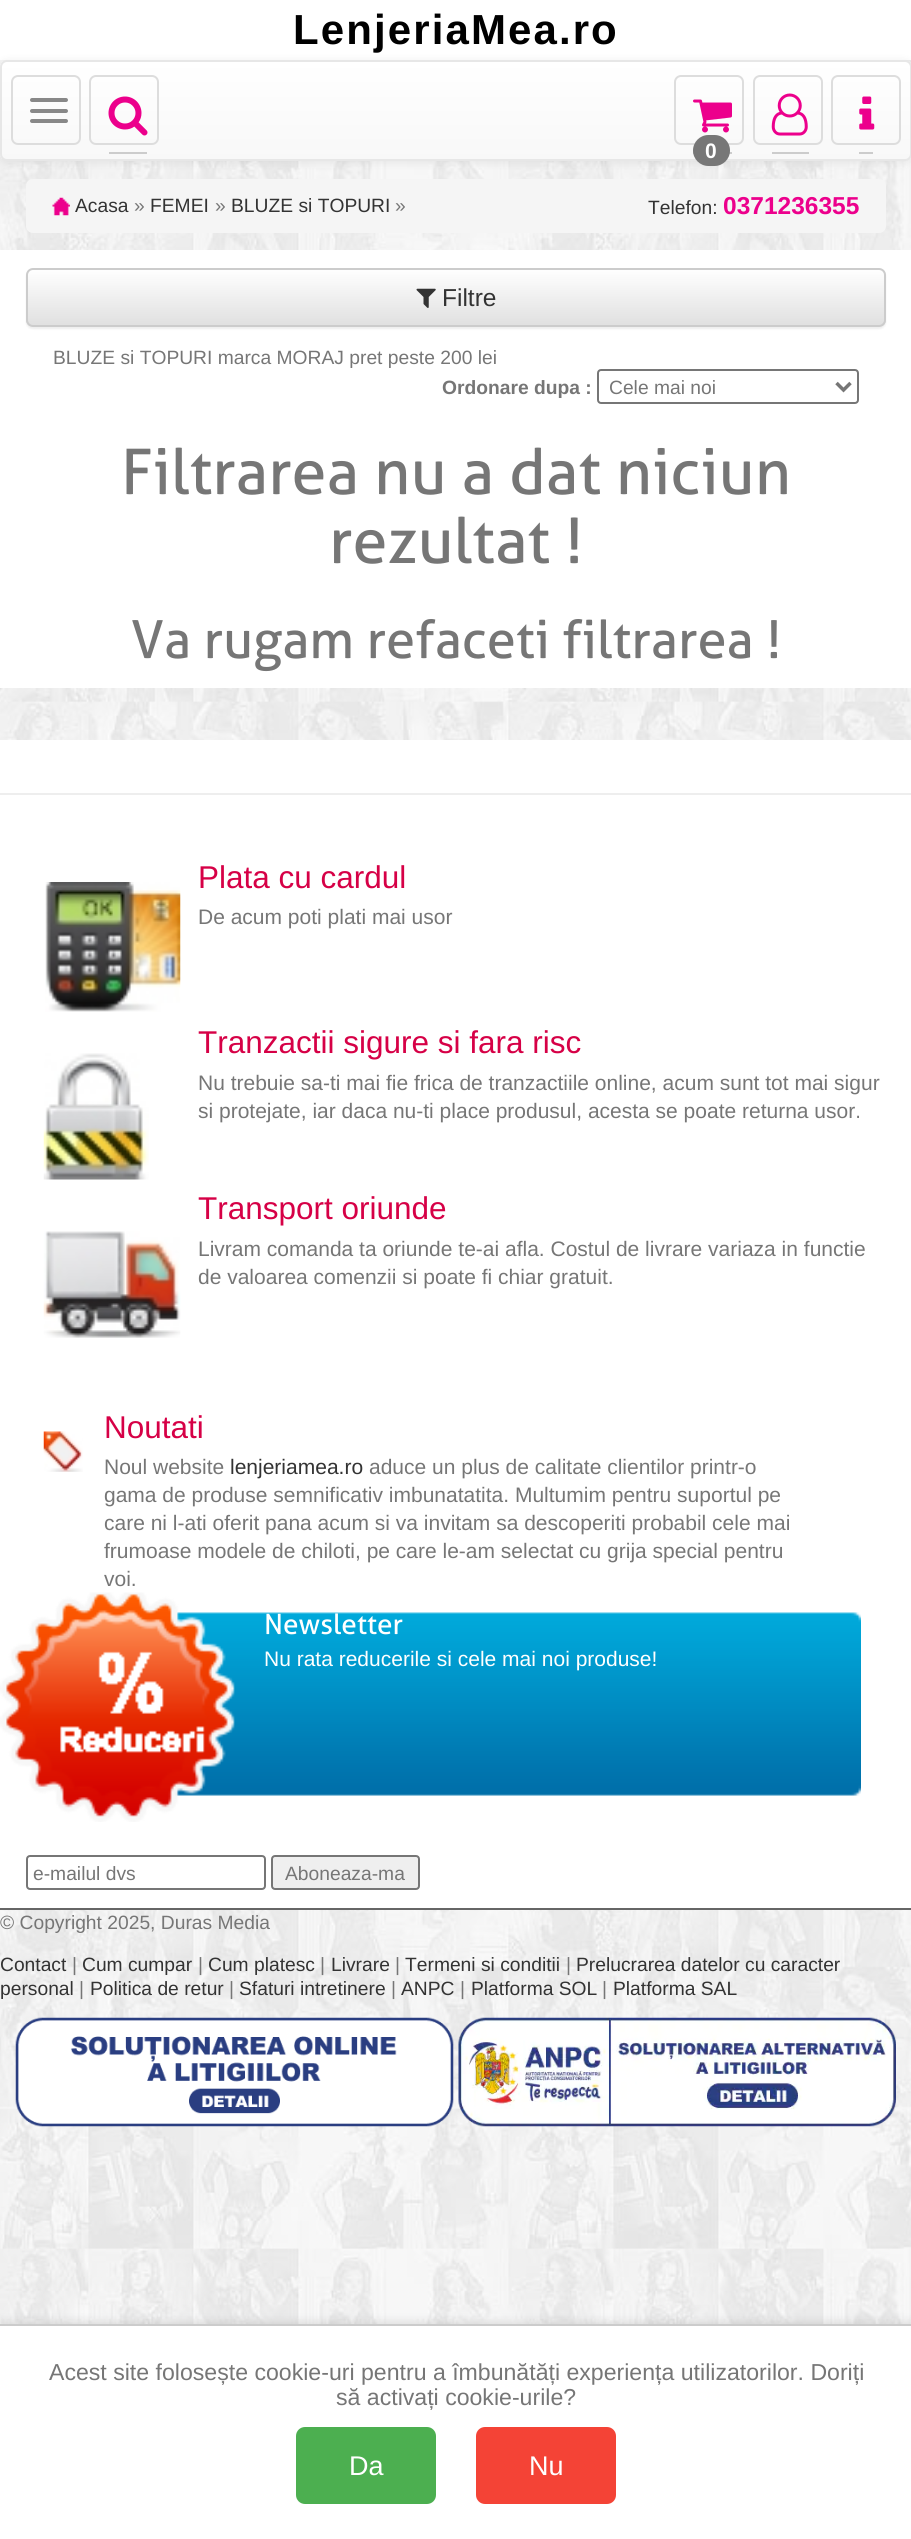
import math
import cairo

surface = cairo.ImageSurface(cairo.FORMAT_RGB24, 911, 2539)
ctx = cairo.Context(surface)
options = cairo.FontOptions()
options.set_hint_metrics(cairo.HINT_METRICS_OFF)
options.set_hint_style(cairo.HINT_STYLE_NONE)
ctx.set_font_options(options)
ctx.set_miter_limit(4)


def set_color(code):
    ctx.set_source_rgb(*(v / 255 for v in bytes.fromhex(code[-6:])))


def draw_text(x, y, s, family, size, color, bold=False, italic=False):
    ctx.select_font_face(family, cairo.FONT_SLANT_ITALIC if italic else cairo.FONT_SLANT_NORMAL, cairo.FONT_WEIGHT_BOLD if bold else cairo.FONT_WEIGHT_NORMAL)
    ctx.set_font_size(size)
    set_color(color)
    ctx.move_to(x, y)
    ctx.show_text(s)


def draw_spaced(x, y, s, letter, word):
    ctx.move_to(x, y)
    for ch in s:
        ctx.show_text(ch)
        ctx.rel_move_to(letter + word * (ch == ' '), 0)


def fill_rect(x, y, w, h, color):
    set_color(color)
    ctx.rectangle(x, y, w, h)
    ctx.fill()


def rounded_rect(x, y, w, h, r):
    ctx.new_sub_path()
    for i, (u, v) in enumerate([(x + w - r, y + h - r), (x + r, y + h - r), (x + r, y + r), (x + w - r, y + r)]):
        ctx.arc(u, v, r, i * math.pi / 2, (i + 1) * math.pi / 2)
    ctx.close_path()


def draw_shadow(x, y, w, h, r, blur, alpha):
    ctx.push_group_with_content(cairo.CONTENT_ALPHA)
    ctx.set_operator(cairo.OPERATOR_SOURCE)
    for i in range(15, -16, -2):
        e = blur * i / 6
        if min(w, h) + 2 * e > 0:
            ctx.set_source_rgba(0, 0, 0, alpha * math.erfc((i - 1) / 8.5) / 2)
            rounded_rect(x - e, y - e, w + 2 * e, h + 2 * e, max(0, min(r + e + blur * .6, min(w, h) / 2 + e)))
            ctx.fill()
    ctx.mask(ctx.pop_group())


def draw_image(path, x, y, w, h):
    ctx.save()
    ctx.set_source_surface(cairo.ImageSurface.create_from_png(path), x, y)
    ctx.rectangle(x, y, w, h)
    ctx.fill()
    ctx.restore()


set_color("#ffffff")
ctx.paint()
draw_image("assets/img1.png", 0, 60, 911, 2264)
ctx.select_font_face("Liberation Sans", cairo.FONT_SLANT_NORMAL, cairo.FONT_WEIGHT_BOLD)
ctx.set_font_size(42)
set_color("#000000")
draw_spaced(293, 44, "LenjeriaMea.ro", 2.1, 0)
set_color("#000000")
draw_shadow(0, 61, 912, 102, 7, 4.5, 0.07)
ctx.save()
rounded_rect(0, 60, 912, 101, 7)
ctx.clip()
gradient = cairo.LinearGradient(456, 61, 456, 159)
gradient.add_color_stop_rgba(0, 1, 1, 1, 1)
gradient.add_color_stop_rgba(1, 0.973, 0.973, 0.973, 1)
ctx.set_source(gradient)
ctx.rectangle(0, 61, 911, 98)
ctx.fill()
ctx.restore()
rounded_rect(1, 61, 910, 99, 6)
set_color("#e7e7e7")
ctx.stroke()
rounded_rect(12, 76, 68, 68, 6)
set_color("#dddddd")
ctx.stroke()
set_color("#888888")
rounded_rect(30, 98, 38, 4, 2)
ctx.fill()
rounded_rect(30, 109, 38, 4, 2)
ctx.fill()
rounded_rect(30, 119, 38, 4, 2)
ctx.fill()
rounded_rect(90, 76, 68, 68, 6)
set_color("#dddddd")
ctx.stroke()
fill_rect(109, 152, 38, 2, "#cccccc")
draw_image("assets/img2.png", 108, 96, 40, 40)
rounded_rect(675, 76, 68, 68, 6)
set_color("#dddddd")
ctx.stroke()
fill_rect(693, 152, 39, 2, "#cccccc")
draw_image("assets/img3.png", 693, 99, 39, 34)
set_color("#777777")
rounded_rect(693, 135, 37, 31, 15.5)
ctx.fill()
draw_text(705, 158, "0", "Liberation Sans", 21, "#ffffff", bold=True)
rounded_rect(754, 76, 68, 68, 6)
set_color("#dddddd")
ctx.stroke()
fill_rect(772, 152, 37, 2, "#cccccc")
draw_image("assets/img4.png", 771, 93, 37, 43)
rounded_rect(832, 76, 68, 68, 6)
set_color("#dddddd")
ctx.stroke()
fill_rect(859, 152, 14, 2, "#cccccc")
draw_image("assets/img5.png", 859, 96, 16, 34)
set_color("#f5f5f5")
rounded_rect(26, 179, 860, 54, 7)
ctx.fill()
draw_image("assets/img6.png", 52, 197, 18, 19)
draw_text(75, 212, "Acasa", "Liberation Sans", 19.25, "#333333")
draw_text(134, 212, "»", "Liberation Sans", 19.25, "#767676")
draw_text(150, 212, "FEMEI", "Liberation Sans", 19.25, "#333333")
draw_text(215, 212, "»", "Liberation Sans", 19.25, "#767676")
draw_text(231, 212, "BLUZE si TOPURI", "Liberation Sans", 19.25, "#333333")
draw_text(395, 212, "»", "Liberation Sans", 19.25, "#767676")
draw_text(648, 214, "Telefon:", "Liberation Sans", 19.25, "#333333")
draw_text(723, 214, "0371236355", "Liberation Sans", 24.5, "#ec008c", bold=True)
fill_rect(0, 250, 911, 438, "#ffffff")
set_color("#000000")
draw_shadow(26, 270, 860, 59, 7, 1, 0.07)
ctx.save()
rounded_rect(26, 268, 860, 59, 7)
ctx.clip()
gradient = cairo.LinearGradient(456, 269, 456, 326)
gradient.add_color_stop_rgba(0, 1, 1, 1, 1)
gradient.add_color_stop_rgba(1, 0.878, 0.878, 0.878, 1)
ctx.set_source(gradient)
ctx.rectangle(26, 270, 860, 56)
ctx.fill()
ctx.restore()
rounded_rect(27, 269, 858, 57, 6)
set_color("#cccccc")
ctx.stroke()
draw_image("assets/img7.png", 416, 288, 20, 20)
draw_text(442, 306, "Filtre", "Liberation Sans", 24.5, "#333333")
draw_text(53, 364, "BLUZE si TOPURI marca MORAJ pret peste 200 lei", "Liberation Sans", 19.25, "#767676")
draw_text(442, 394, "Ordonare dupa :", "Liberation Sans", 19.25, "#767676", bold=True)
rounded_rect(598, 370, 260, 33, 3)
ctx.stroke()
ctx.new_path()
ctx.move_to(836.5, 383)
ctx.line_to(843.5, 390)
ctx.line_to(850.5, 383)
ctx.set_line_width(3.5)
ctx.stroke()
draw_text(609, 394, "Cele mai noi", "Liberation Sans", 19.25, "#767676")
draw_text(121, 494, "Filtrarea nu a dat niciun", "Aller", 63, "#767676")
draw_text(329, 563, "rezultat !", "Aller", 63, "#767676")
draw_text(131, 658, "Va rugam refaceti filtrarea !", "Aller", 52.5, "#767676")
fill_rect(0, 740, 911, 1168, "#ffffff")
fill_rect(0, 793, 911, 2, "#eeeeee")
draw_image("assets/img8.png", 45, 882, 136, 130)
draw_text(198, 888, "Plata cu cardul", "Liberation Sans", 31.5, "#d60046")
draw_text(198, 924, "De acum poti plati mai usor", "Liberation Sans", 21, "#767676")
draw_image("assets/img9.png", 43, 1053, 106, 127)
draw_text(198, 1053, "Tranzactii sigure si fara risc", "Liberation Sans", 31.5, "#d60046")
draw_text(198, 1090, "Nu trebuie sa-ti mai fie frica de tranzactiile online, acum sunt tot mai sigur", "Liberation Sans", 21, "#767676")
draw_text(198, 1118, "si protejate, iar daca nu-ti place produsul, acesta se poate returna usor.", "Liberation Sans", 21, "#767676")
draw_image("assets/img10.png", 43, 1231, 138, 107)
draw_text(198, 1219, "Transport oriunde", "Liberation Sans", 31.5, "#d60046")
draw_text(198, 1256, "Livram comanda ta oriunde te-ai afla. Costul de livrare variaza in functie", "Liberation Sans", 21, "#767676")
draw_text(198, 1284, "de valoarea comenzii si poate fi chiar gratuit.", "Liberation Sans", 21, "#767676")
draw_image("assets/img11.png", 43, 1431, 40, 41)
draw_text(104, 1438, "Noutati", "Liberation Sans", 31.5, "#d60046")
draw_text(104, 1474, "Noul website", "Liberation Sans", 21, "#767676")
draw_text(230, 1474, "lenjeriamea.ro", "Liberation Sans", 21, "#333333")
draw_text(369, 1474, "aduce un plus de calitate clientilor printr-o", "Liberation Sans", 21, "#767676")
draw_text(104, 1502, "gama de produse semnificativ imbunatatita. Multumim pentru suportul pe", "Liberation Sans", 21, "#767676")
draw_text(104, 1530, "care ni l-ati oferit pana acum si va invitam sa descoperiti probabil cele mai", "Liberation Sans", 21, "#767676")
draw_text(104, 1558, "frumoase modele de chiloti, pe care le-am selectat cu grija special pentru", "Liberation Sans", 21, "#767676")
draw_text(104, 1586, "voi.", "Liberation Sans", 21, "#767676")
draw_image("assets/img12.png", 0, 1592, 861, 230)
draw_text(264, 1634, "Newsletter", "Aller", 28, "#ffffff")
draw_image("assets/img13.png", 60, 1651, 145, 102)
draw_text(264, 1666, "Nu rata reducerile si cele mai noi produse!", "Liberation Sans", 21, "#ffffff")
rounded_rect(27, 1856, 238, 33, 3)
set_color("#767676")
ctx.set_line_width(2)
ctx.stroke()
draw_text(33, 1880, "e-mailul dvs", "Liberation Sans", 19.25, "#767676")
set_color("#efefef")
rounded_rect(272, 1856, 147, 33, 3)
ctx.fill_preserve()
set_color("#767676")
ctx.stroke()
draw_text(285, 1880, "Aboneaza-ma", "Liberation Sans", 19.25, "#767676")
fill_rect(0, 1908, 911, 2, "#666666")
draw_text(0, 1929, "© Copyright 2025, Duras Media", "Liberation Sans", 19.25, "#767676")
draw_text(0, 1971, "Contact", "Liberation Sans", 19.25, "#333333")
draw_text(72, 1971, "|", "Liberation Sans", 19.25, "#767676")
draw_text(82, 1971, "Cum cumpar", "Liberation Sans", 19.25, "#333333")
draw_text(198, 1971, "|", "Liberation Sans", 19.25, "#767676")
draw_text(208, 1971, "Cum platesc", "Liberation Sans", 19.25, "#333333")
draw_text(320, 1971, "|", "Liberation Sans", 19.25, "#767676")
draw_text(331, 1971, "Livrare", "Liberation Sans", 19.25, "#333333")
draw_text(395, 1971, "|", "Liberation Sans", 19.25, "#767676")
draw_text(405, 1971, "Termeni si conditii", "Liberation Sans", 19.25, "#333333")
draw_text(566, 1971, "|", "Liberation Sans", 19.25, "#767676")
draw_text(576, 1971, "Prelucrarea datelor cu caracter", "Liberation Sans", 19.25, "#333333")
draw_text(0, 1995, "personal", "Liberation Sans", 19.25, "#333333")
draw_text(79, 1995, "|", "Liberation Sans", 19.25, "#767676")
draw_text(90, 1995, "Politica de retur", "Liberation Sans", 19.25, "#333333")
draw_text(229, 1995, "|", "Liberation Sans", 19.25, "#767676")
draw_text(239, 1995, "Sfaturi intretinere", "Liberation Sans", 19.25, "#333333")
draw_text(391, 1995, "|", "Liberation Sans", 19.25, "#767676")
draw_text(401, 1995, "ANPC", "Liberation Sans", 19.25, "#333333")
draw_text(460, 1995, "|", "Liberation Sans", 19.25, "#767676")
draw_text(471, 1995, "Platforma SOL", "Liberation Sans", 19.25, "#333333")
draw_text(602, 1995, "|", "Liberation Sans", 19.25, "#767676")
draw_text(613, 1995, "Platforma SAL", "Liberation Sans", 19.25, "#333333")
draw_image("assets/img14.png", 15, 2017, 439, 110)
draw_image("assets/img15.png", 458, 2017, 438, 110)
set_color("#000000")
draw_shadow(0, 2321, 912, 215, 0, 4.5, 0.1)
fill_rect(0, 2326, 911, 213, "#ffffff")
fill_rect(0, 2324, 911, 2, "#cccccc")
draw_text(49, 2380, "Acest site folosește cookie-uri pentru a îmbunătăți experiența utilizatorilor. Doriți", "Liberation Sans", 23.1, "#767676")
draw_text(336, 2405, "să activați cookie-urile?", "Liberation Sans", 23.1, "#767676")
set_color("#4caf50")
rounded_rect(296, 2427, 140, 77, 9)
ctx.fill()
draw_text(349, 2475, "Da", "Liberation Sans", 27, "#ffffff")
set_color("#f44336")
rounded_rect(476, 2427, 140, 77, 9)
ctx.fill()
draw_text(529, 2475, "Nu", "Liberation Sans", 27, "#ffffff")
surface.write_to_png("output.png")
